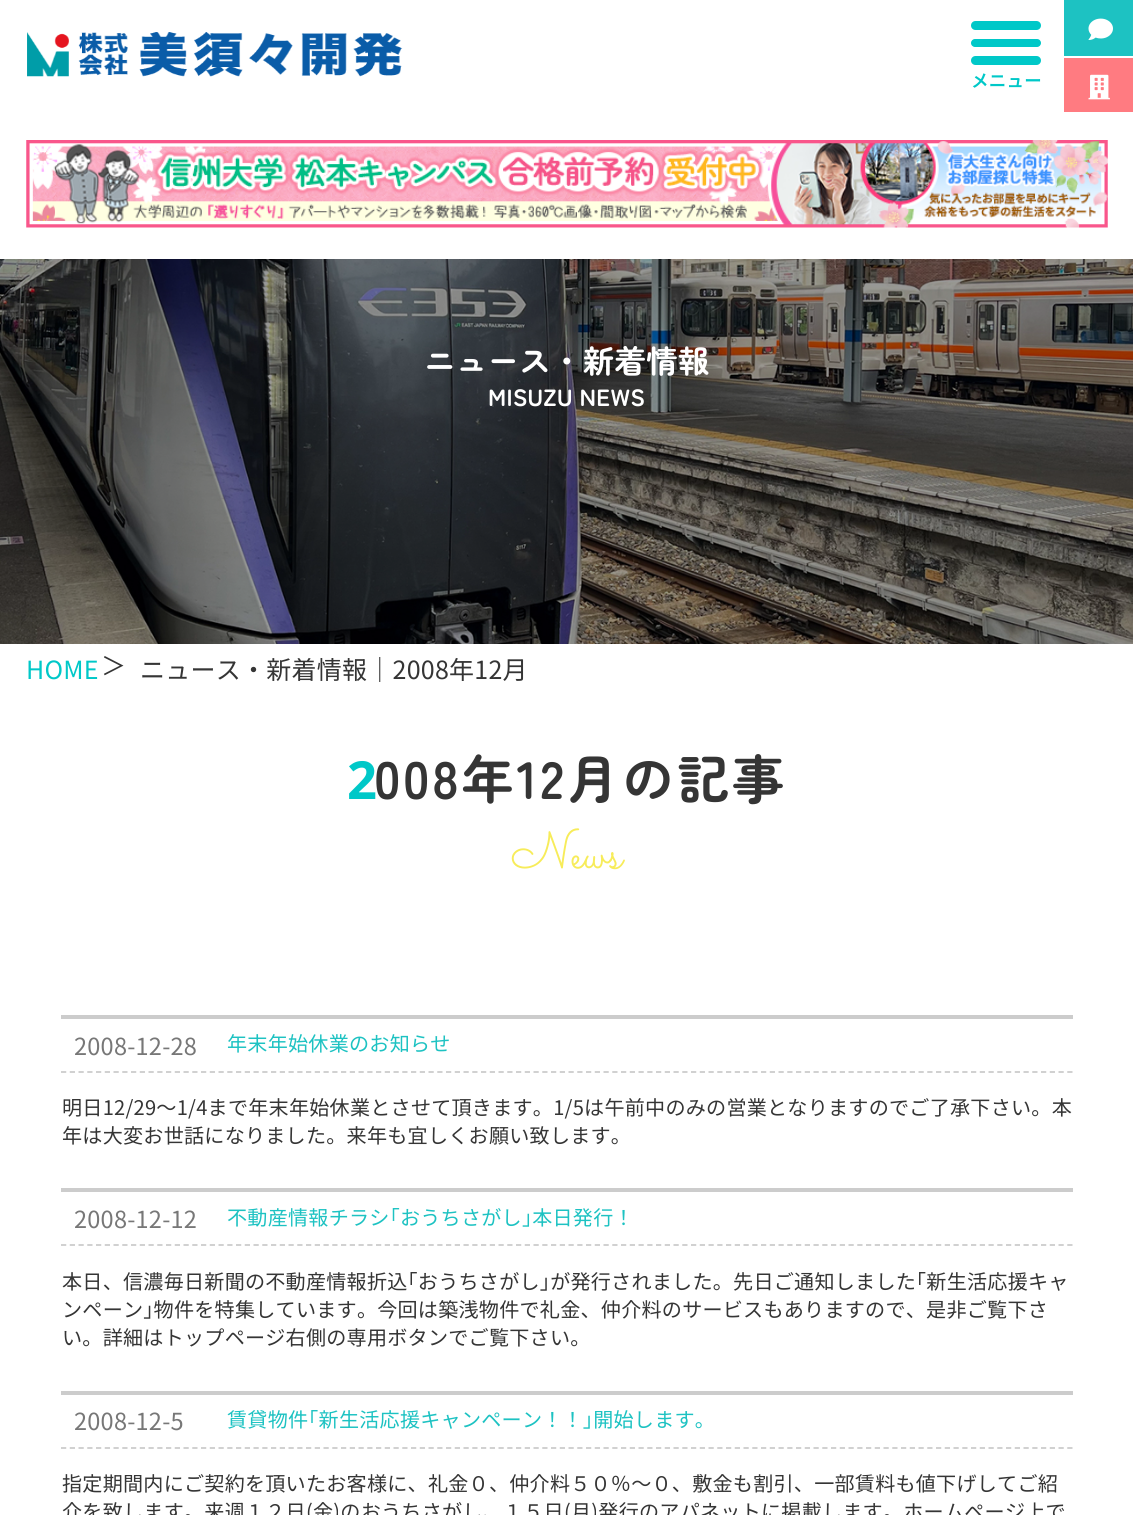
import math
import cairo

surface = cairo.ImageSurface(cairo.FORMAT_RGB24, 1133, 1515)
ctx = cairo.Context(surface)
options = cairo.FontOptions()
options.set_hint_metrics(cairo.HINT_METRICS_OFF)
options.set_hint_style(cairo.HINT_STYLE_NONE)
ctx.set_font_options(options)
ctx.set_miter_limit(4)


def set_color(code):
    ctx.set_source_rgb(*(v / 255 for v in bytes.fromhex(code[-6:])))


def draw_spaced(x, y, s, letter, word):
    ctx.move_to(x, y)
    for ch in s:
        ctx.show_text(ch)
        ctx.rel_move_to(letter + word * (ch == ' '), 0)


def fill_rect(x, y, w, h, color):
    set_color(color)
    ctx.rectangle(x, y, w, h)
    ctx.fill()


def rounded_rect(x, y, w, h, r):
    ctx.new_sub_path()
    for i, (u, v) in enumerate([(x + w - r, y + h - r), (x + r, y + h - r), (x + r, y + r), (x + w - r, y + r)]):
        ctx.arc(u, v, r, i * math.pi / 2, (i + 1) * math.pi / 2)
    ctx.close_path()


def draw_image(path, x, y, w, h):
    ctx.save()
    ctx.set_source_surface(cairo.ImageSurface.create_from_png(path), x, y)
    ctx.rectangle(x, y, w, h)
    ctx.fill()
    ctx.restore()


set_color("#ffffff")
ctx.paint()
draw_image("assets/img1.png", 27, 32, 376, 45)
fill_rect(1064, 0, 69, 56, "#1dc2c2")
draw_image("assets/img2.png", 1088, 18, 25, 22)
fill_rect(1064, 58, 69, 54, "#ff7b81")
draw_image("assets/img3.png", 1088, 74, 22, 26)
set_color("#00c8c8")
rounded_rect(971, 21, 70, 9, 4.5)
ctx.fill()
rounded_rect(971, 39, 70, 8, 4)
ctx.fill()
rounded_rect(971, 56, 70, 9, 4.5)
ctx.fill()
ctx.select_font_face("Noto Sans JP SemiBold")
ctx.set_font_size(17.5)
draw_spaced(971, 87, "メニュー", 0.25, 0)
draw_image("assets/img4.png", 26, 140, 1082, 88)
draw_image("assets/img5.png", 0, 259, 1133, 385)
ctx.select_font_face("Zen Maru Gothic", cairo.FONT_SLANT_NORMAL, cairo.FONT_WEIGHT_BOLD)
ctx.set_font_size(31.5)
set_color("#ffffff")
draw_spaced(424, 373, "ニュース・新着情報", 0.25, 0)
ctx.set_font_size(23.5)
draw_spaced(488, 406, "MISUZU NEWS", 0.25, 0)
ctx.select_font_face("Noto Sans JP")
ctx.set_font_size(25)
set_color("#00c8c8")
draw_spaced(26, 679, "HOME", 0.25, 0)
set_color("#353535")
draw_spaced(101, 675, "＞", 0.25, 0)
draw_spaced(140, 679, "ニュース・新着情報｜2008年12月", 0.25, 0)
ctx.select_font_face("Noto Sans", cairo.FONT_SLANT_NORMAL, cairo.FONT_WEIGHT_BOLD)
ctx.set_font_size(52.5)
set_color("#00c8c8")
draw_spaced(347, 799, "2", 2.6, 0)
ctx.select_font_face("Zen Maru Gothic", cairo.FONT_SLANT_NORMAL, cairo.FONT_WEIGHT_BOLD)
set_color("#353535")
draw_spaced(374, 799, "008年12月の記事", 2.6, 0)
ctx.select_font_face("Sacramento")
set_color("#f7ec5a")
draw_spaced(511, 868, "News", 0.25, 0)
fill_rect(61, 1015, 1012, 4, "#cccccc")
ctx.new_path()
ctx.move_to(61, 1072)
ctx.line_to(1073, 1072)
ctx.set_line_width(1.8)
ctx.set_dash([5.25, 3.5])
ctx.stroke()
ctx.select_font_face("Noto Sans JP")
ctx.set_font_size(23.5)
set_color("#777777")
draw_spaced(74, 1055, "2008-12-28", 0.25, 0)
ctx.set_font_size(20.08)
set_color("#1dc2c2")
draw_spaced(227, 1051, "年末年始休業のお知らせ", 0.25, 0)
set_color("#353535")
draw_spaced(62, 1115, "明日12/29～1/4まで年末年始休業とさせて頂きます。1/5は午前中のみの営業となりますのでご了承下さい。本", 0.25, 0)
draw_spaced(62, 1143, "年は大変お世話になりました。来年も宜しくお願い致します。", 0.25, 0)
fill_rect(61, 1188, 1012, 4, "#cccccc")
ctx.new_path()
ctx.move_to(61, 1245)
ctx.line_to(1073, 1245)
ctx.stroke()
ctx.set_font_size(23.5)
set_color("#777777")
draw_spaced(74, 1228, "2008-12-12", 0.25, 0)
ctx.set_font_size(20.08)
set_color("#1dc2c2")
draw_spaced(227, 1225, "不動産情報チラシ｢おうちさがし｣本日発行！", 0.25, 0)
set_color("#353535")
draw_spaced(62, 1289, "本日、信濃毎日新聞の不動産情報折込｢おうちさがし｣が発行されました。先日ご通知しました｢新生活応援キャ", 0.25, 0)
draw_spaced(62, 1317, "ンペーン｣物件を特集しています。今回は築浅物件で礼金、仲介料のサービスもありますので、是非ご覧下さ", 0.25, 0)
draw_spaced(62, 1345, "い。詳細はトップページ右側の専用ボタンでご覧下さい。", 0.25, 0)
fill_rect(61, 1391, 1012, 4, "#cccccc")
ctx.new_path()
ctx.move_to(61, 1448)
ctx.line_to(1073, 1448)
ctx.stroke()
ctx.set_font_size(23.5)
set_color("#777777")
draw_spaced(74, 1430, "2008-12-5", 0.25, 0)
ctx.set_font_size(20.08)
set_color("#1dc2c2")
draw_spaced(227, 1427, "賃貸物件｢新生活応援キャンペーン！！｣開始します。", 0.25, 0)
set_color("#353535")
draw_spaced(62, 1491, "指定期間内にご契約を頂いたお客様に、礼金０、仲介料５０％～０、敷金も割引、一部賃料も値下げしてご紹", 0.25, 0)
draw_spaced(62, 1519, "介を致します。来週１２日(金)のおうちさがし、１５日(月)発行のアパネットに掲載します。ホームページ上で", 0.25, 0)
surface.write_to_png("output.png")
